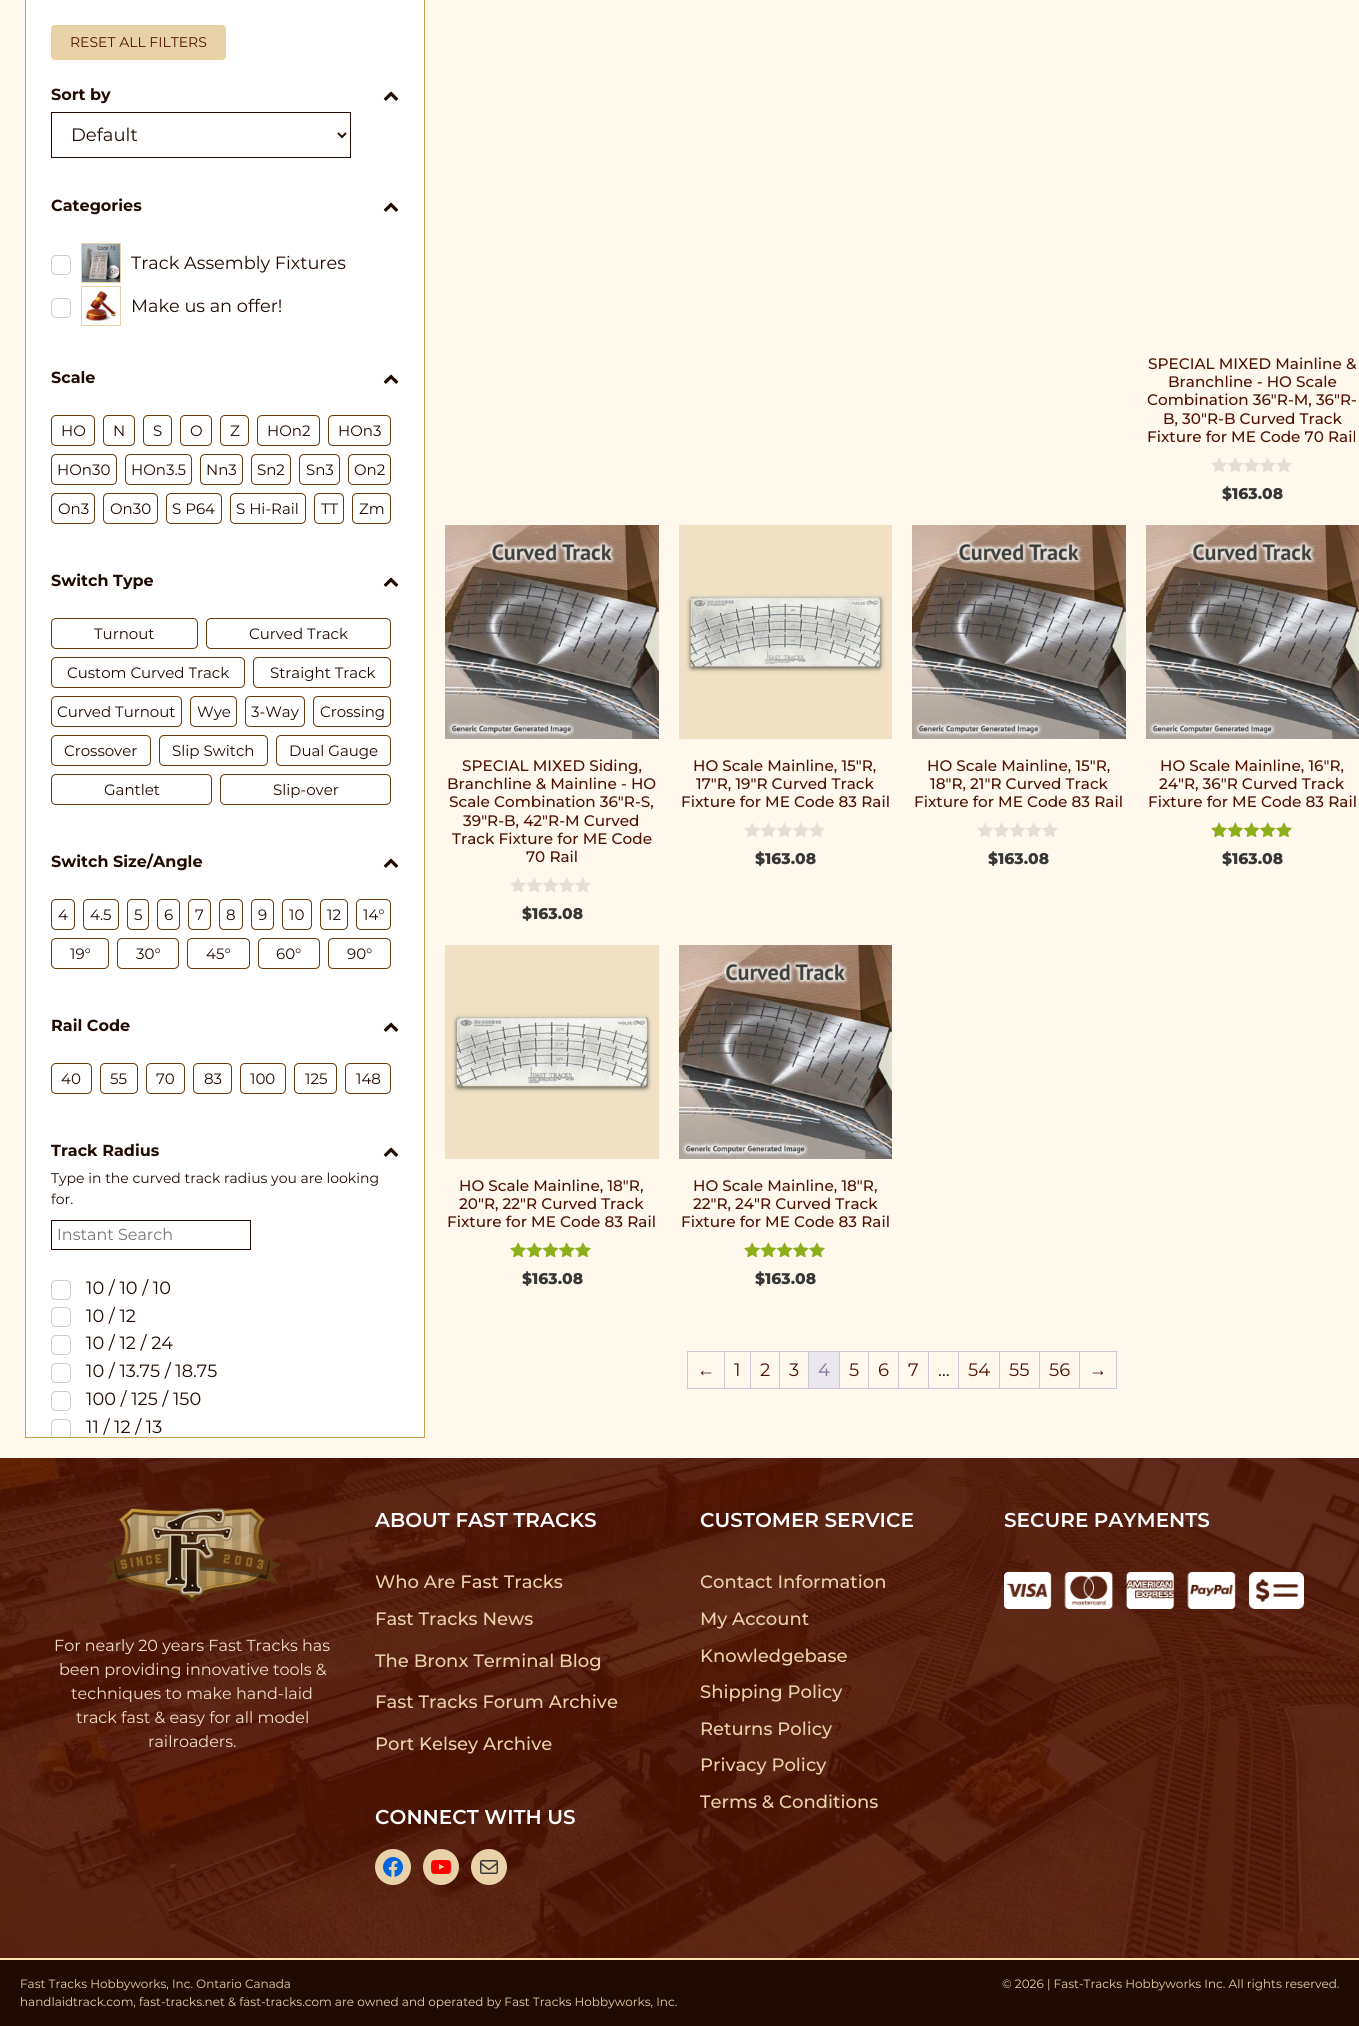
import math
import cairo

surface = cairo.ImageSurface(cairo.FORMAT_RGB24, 1359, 2026)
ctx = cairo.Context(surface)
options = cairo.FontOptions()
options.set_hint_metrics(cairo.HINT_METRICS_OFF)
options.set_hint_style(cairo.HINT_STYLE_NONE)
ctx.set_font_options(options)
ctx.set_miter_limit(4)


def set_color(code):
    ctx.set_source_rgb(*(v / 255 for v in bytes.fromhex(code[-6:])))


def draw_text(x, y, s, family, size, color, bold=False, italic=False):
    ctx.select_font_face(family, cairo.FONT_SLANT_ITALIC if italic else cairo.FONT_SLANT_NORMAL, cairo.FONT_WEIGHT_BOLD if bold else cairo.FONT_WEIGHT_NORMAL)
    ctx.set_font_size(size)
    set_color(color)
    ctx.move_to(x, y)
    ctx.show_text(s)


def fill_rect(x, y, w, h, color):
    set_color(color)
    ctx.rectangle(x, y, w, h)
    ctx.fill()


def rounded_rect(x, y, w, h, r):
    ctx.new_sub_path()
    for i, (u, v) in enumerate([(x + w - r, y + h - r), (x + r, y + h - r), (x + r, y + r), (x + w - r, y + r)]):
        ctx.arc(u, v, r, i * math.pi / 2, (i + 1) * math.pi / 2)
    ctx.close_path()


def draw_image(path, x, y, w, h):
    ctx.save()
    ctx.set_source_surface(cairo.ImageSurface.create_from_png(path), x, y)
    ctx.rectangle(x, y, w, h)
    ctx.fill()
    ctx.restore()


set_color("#fef8ed")
ctx.paint()
set_color("#ffffff")
ctx.rectangle(25.5, -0.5, 399, 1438)
ctx.fill_preserve()
set_color("#ca9e4e")
ctx.set_line_width(1)
ctx.stroke()
set_color("#e9d2a8")
rounded_rect(51, 25, 175, 35, 4)
ctx.fill()
draw_text(70, 47, "RESET ALL FILTERS", "Montserrat Thin", 14, "#501201")
draw_text(51, 100, "Sort by", "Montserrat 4 Thin", 16, "#200a01")
draw_image("assets/img1.png", 383, 91, 16, 10)
ctx.rectangle(51.5, 112.5, 299, 45)
ctx.stroke()
ctx.new_path()
ctx.move_to(338, 133)
ctx.line_to(342, 137)
ctx.line_to(346, 133)
ctx.set_line_width(2)
ctx.stroke()
draw_text(71, 141, "Default", "Montserrat Thin", 18, "#200a01")
draw_text(51, 211, "Categories", "Montserrat 4 Thin", 16, "#200a01")
draw_image("assets/img1.png", 383, 202, 16, 10)
rounded_rect(51.5, 255.5, 19, 19, 4.5)
set_color("#cccccc")
ctx.set_line_width(1)
ctx.stroke()
ctx.rectangle(81.5, 243.5, 39, 39)
set_color("#e9d2a8")
ctx.stroke()
draw_image("assets/img2.png", 82, 244, 38, 38)
draw_text(131, 269, "Track Assembly Fixtures", "Montserrat Thin", 17.75, "#200a01")
rounded_rect(51.5, 298.5, 19, 19, 4.5)
set_color("#cccccc")
ctx.stroke()
ctx.rectangle(81.5, 286.5, 39, 39)
set_color("#e9d2a8")
ctx.stroke()
draw_image("assets/img3.png", 82, 287, 36, 36)
draw_text(131, 312, "Make us an offer!", "Montserrat Thin", 17.75, "#200a01")
draw_text(51, 383, "Scale", "Montserrat 4 Thin", 16, "#200a01")
draw_image("assets/img1.png", 383, 374, 16, 10)
rounded_rect(51.5, 415.5, 43, 30, 4.5)
set_color("#6a3a0f")
ctx.stroke()
draw_text(61, 436, "HO", "Montserrat Thin", 15, "#200a01")
rounded_rect(103.5, 415.5, 31, 30, 4.5)
set_color("#6a3a0f")
ctx.stroke()
draw_text(113, 436, "N", "Montserrat Thin", 15, "#200a01")
rounded_rect(143.5, 415.5, 28, 30, 4.5)
set_color("#6a3a0f")
ctx.stroke()
draw_text(153, 436, "S", "Montserrat Thin", 15, "#200a01")
rounded_rect(180.5, 415.5, 31, 30, 4.5)
set_color("#6a3a0f")
ctx.stroke()
draw_text(190, 436, "O", "Montserrat Thin", 15, "#200a01")
rounded_rect(220.5, 415.5, 28, 30, 4.5)
set_color("#6a3a0f")
ctx.stroke()
draw_text(230, 436, "Z", "Montserrat Thin", 15, "#200a01")
rounded_rect(257.5, 415.5, 62, 30, 4.5)
set_color("#6a3a0f")
ctx.stroke()
draw_text(267, 436, "HOn2", "Montserrat Thin", 15, "#200a01")
rounded_rect(328.5, 415.5, 62, 30, 4.5)
set_color("#6a3a0f")
ctx.stroke()
draw_text(338, 436, "HOn3", "Montserrat Thin", 15, "#200a01")
rounded_rect(51.5, 454.5, 65, 30, 4.5)
set_color("#6a3a0f")
ctx.stroke()
draw_text(57, 475, "HOn30", "Montserrat Thin", 15, "#200a01")
rounded_rect(125.5, 454.5, 66, 30, 4.5)
set_color("#6a3a0f")
ctx.stroke()
draw_text(131, 475, "HOn3.5", "Montserrat Thin", 15, "#200a01")
rounded_rect(200.5, 454.5, 42, 30, 4.5)
set_color("#6a3a0f")
ctx.stroke()
draw_text(206, 475, "Nn3", "Montserrat Thin", 15, "#200a01")
rounded_rect(251.5, 454.5, 39, 30, 4.5)
set_color("#6a3a0f")
ctx.stroke()
draw_text(257, 475, "Sn2", "Montserrat Thin", 15, "#200a01")
rounded_rect(299.5, 454.5, 40, 30, 4.5)
set_color("#6a3a0f")
ctx.stroke()
draw_text(306, 475, "Sn3", "Montserrat Thin", 15, "#200a01")
rounded_rect(348.5, 454.5, 42, 30, 4.5)
set_color("#6a3a0f")
ctx.stroke()
draw_text(354, 475, "On2", "Montserrat Thin", 15, "#200a01")
rounded_rect(51.5, 493.5, 43, 30, 4.5)
set_color("#6a3a0f")
ctx.stroke()
draw_text(58, 514, "On3", "Montserrat Thin", 15, "#200a01")
rounded_rect(103.5, 493.5, 54, 30, 4.5)
set_color("#6a3a0f")
ctx.stroke()
draw_text(110, 514, "On30", "Montserrat Thin", 15, "#200a01")
rounded_rect(166.5, 493.5, 55, 30, 4.5)
set_color("#6a3a0f")
ctx.stroke()
draw_text(172, 514, "S P64", "Montserrat Thin", 15, "#200a01")
rounded_rect(230.5, 493.5, 75, 30, 4.5)
set_color("#6a3a0f")
ctx.stroke()
draw_text(236, 514, "S Hi-Rail", "Montserrat Thin", 15, "#200a01")
rounded_rect(314.5, 493.5, 29, 30, 4.5)
set_color("#6a3a0f")
ctx.stroke()
draw_text(321, 514, "TT", "Montserrat Thin", 15, "#200a01")
rounded_rect(352.5, 493.5, 38, 30, 4.5)
set_color("#6a3a0f")
ctx.stroke()
draw_text(359, 514, "Zm", "Montserrat Thin", 15, "#200a01")
draw_text(51, 586, "Switch Type", "Montserrat 4 Thin", 16, "#200a01")
draw_image("assets/img1.png", 383, 577, 16, 10)
rounded_rect(51.5, 618.5, 146, 30, 4.5)
set_color("#6a3a0f")
ctx.stroke()
draw_text(94, 639, "Turnout", "Montserrat Thin", 15, "#200a01")
rounded_rect(206.5, 618.5, 184, 30, 4.5)
set_color("#6a3a0f")
ctx.stroke()
draw_text(249, 639, "Curved Track", "Montserrat Thin", 15, "#200a01")
rounded_rect(51.5, 657.5, 193, 30, 4.5)
set_color("#6a3a0f")
ctx.stroke()
draw_text(67, 678, "Custom Curved Track", "Montserrat Thin", 15, "#200a01")
rounded_rect(253.5, 657.5, 137, 30, 4.5)
set_color("#6a3a0f")
ctx.stroke()
draw_text(270, 678, "Straight Track", "Montserrat Thin", 15, "#200a01")
rounded_rect(51.5, 696.5, 130, 30, 4.5)
set_color("#6a3a0f")
ctx.stroke()
draw_text(57, 717, "Curved Turnout", "Montserrat Thin", 15, "#200a01")
rounded_rect(190.5, 696.5, 46, 30, 4.5)
set_color("#6a3a0f")
ctx.stroke()
draw_text(197, 717, "Wye", "Montserrat Thin", 15, "#200a01")
rounded_rect(245.5, 696.5, 59, 30, 4.5)
set_color("#6a3a0f")
ctx.stroke()
draw_text(251, 717, "3-Way", "Montserrat Thin", 15, "#200a01")
rounded_rect(313.5, 696.5, 77, 30, 4.5)
set_color("#6a3a0f")
ctx.stroke()
draw_text(320, 717, "Crossing", "Montserrat Thin", 15, "#200a01")
rounded_rect(51.5, 735.5, 99, 30, 4.5)
set_color("#6a3a0f")
ctx.stroke()
draw_text(64, 756, "Crossover", "Montserrat Thin", 15, "#200a01")
rounded_rect(159.5, 735.5, 108, 30, 4.5)
set_color("#6a3a0f")
ctx.stroke()
draw_text(172, 756, "Slip Switch", "Montserrat Thin", 15, "#200a01")
rounded_rect(276.5, 735.5, 114, 30, 4.5)
set_color("#6a3a0f")
ctx.stroke()
draw_text(289, 756, "Dual Gauge", "Montserrat Thin", 15, "#200a01")
rounded_rect(51.5, 774.5, 160, 30, 4.5)
set_color("#6a3a0f")
ctx.stroke()
draw_text(104, 795, "Gantlet", "Montserrat Thin", 15, "#200a01")
rounded_rect(220.5, 774.5, 170, 30, 4.5)
set_color("#6a3a0f")
ctx.stroke()
draw_text(273, 795, "Slip-over", "Montserrat Thin", 15, "#200a01")
draw_text(51, 867, "Switch Size/Angle", "Montserrat 4 Thin", 16, "#200a01")
draw_image("assets/img1.png", 383, 858, 16, 10)
rounded_rect(51.5, 899.5, 23, 30, 4.5)
set_color("#6a3a0f")
ctx.stroke()
draw_text(58, 920, "4", "Montserrat Thin", 15, "#200a01")
rounded_rect(83.5, 899.5, 35, 30, 4.5)
set_color("#6a3a0f")
ctx.stroke()
draw_text(90, 920, "4.5", "Montserrat Thin", 15, "#200a01")
rounded_rect(127.5, 899.5, 21, 30, 4.5)
set_color("#6a3a0f")
ctx.stroke()
draw_text(134, 920, "5", "Montserrat Thin", 15, "#200a01")
rounded_rect(157.5, 899.5, 22, 30, 4.5)
set_color("#6a3a0f")
ctx.stroke()
draw_text(164, 920, "6", "Montserrat Thin", 15, "#200a01")
rounded_rect(188.5, 899.5, 22, 30, 4.5)
set_color("#6a3a0f")
ctx.stroke()
draw_text(195, 920, "7", "Montserrat Thin", 15, "#200a01")
rounded_rect(219.5, 899.5, 23, 30, 4.5)
set_color("#6a3a0f")
ctx.stroke()
draw_text(226, 920, "8", "Montserrat Thin", 15, "#200a01")
rounded_rect(251.5, 899.5, 22, 30, 4.5)
set_color("#6a3a0f")
ctx.stroke()
draw_text(258, 920, "9", "Montserrat Thin", 15, "#200a01")
rounded_rect(282.5, 899.5, 29, 30, 4.5)
set_color("#6a3a0f")
ctx.stroke()
draw_text(289, 920, "10", "Montserrat Thin", 15, "#200a01")
rounded_rect(320.5, 899.5, 27, 30, 4.5)
set_color("#6a3a0f")
ctx.stroke()
draw_text(327, 920, "12", "Montserrat Thin", 15, "#200a01")
rounded_rect(356.5, 899.5, 34, 30, 4.5)
set_color("#6a3a0f")
ctx.stroke()
draw_text(363, 920, "14°", "Montserrat Thin", 15, "#200a01")
rounded_rect(51.5, 938.5, 57, 30, 4.5)
set_color("#6a3a0f")
ctx.stroke()
draw_text(70, 959, "19°", "Montserrat Thin", 15, "#200a01")
rounded_rect(117.5, 938.5, 61, 30, 4.5)
set_color("#6a3a0f")
ctx.stroke()
draw_text(136, 959, "30°", "Montserrat Thin", 15, "#200a01")
rounded_rect(187.5, 938.5, 62, 30, 4.5)
set_color("#6a3a0f")
ctx.stroke()
draw_text(206, 959, "45°", "Montserrat Thin", 15, "#200a01")
rounded_rect(258.5, 938.5, 61, 30, 4.5)
set_color("#6a3a0f")
ctx.stroke()
draw_text(276, 959, "60°", "Montserrat Thin", 15, "#200a01")
rounded_rect(328.5, 938.5, 62, 30, 4.5)
set_color("#6a3a0f")
ctx.stroke()
draw_text(347, 959, "90°", "Montserrat Thin", 15, "#200a01")
draw_text(51, 1031, "Rail Code", "Montserrat 4 Thin", 16, "#200a01")
draw_image("assets/img1.png", 383, 1022, 16, 10)
rounded_rect(51.5, 1063.5, 40, 30, 4.5)
set_color("#6a3a0f")
ctx.stroke()
draw_text(61, 1084, "40", "Montserrat Thin", 15, "#200a01")
rounded_rect(100.5, 1063.5, 37, 30, 4.5)
set_color("#6a3a0f")
ctx.stroke()
draw_text(110, 1084, "55", "Montserrat Thin", 15, "#200a01")
rounded_rect(146.5, 1063.5, 38, 30, 4.5)
set_color("#6a3a0f")
ctx.stroke()
draw_text(156, 1084, "70", "Montserrat Thin", 15, "#200a01")
rounded_rect(193.5, 1063.5, 38, 30, 4.5)
set_color("#6a3a0f")
ctx.stroke()
draw_text(204, 1084, "83", "Montserrat Thin", 15, "#200a01")
rounded_rect(240.5, 1063.5, 45, 30, 4.5)
set_color("#6a3a0f")
ctx.stroke()
draw_text(250, 1084, "100", "Montserrat Thin", 15, "#200a01")
rounded_rect(294.5, 1063.5, 42, 30, 4.5)
set_color("#6a3a0f")
ctx.stroke()
draw_text(305, 1084, "125", "Montserrat Thin", 15, "#200a01")
rounded_rect(345.5, 1063.5, 45, 30, 4.5)
set_color("#6a3a0f")
ctx.stroke()
draw_text(356, 1084, "148", "Montserrat Thin", 15, "#200a01")
draw_text(51, 1156, "Track Radius", "Montserrat 4 Thin", 16, "#200a01")
draw_image("assets/img1.png", 383, 1147, 16, 10)
draw_text(51, 1183, "Type in the curved track radius you are looking", "Montserrat Thin", 14, "#200a01")
draw_text(51, 1204, "for.", "Montserrat Thin", 14, "#200a01")
ctx.rectangle(51.5, 1220.5, 199, 29)
ctx.stroke()
draw_text(57, 1240, "Instant Search", "Montserrat Thin", 16, "#757575")
rounded_rect(51.5, 1280.5, 19, 19, 4.5)
set_color("#cccccc")
ctx.stroke()
draw_text(86, 1294, "10 / 10 / 10", "Montserrat Thin", 17.75, "#200a01")
rounded_rect(51.5, 1307.5, 19, 19, 4.5)
set_color("#cccccc")
ctx.stroke()
draw_text(86, 1322, "10 / 12", "Montserrat Thin", 17.75, "#200a01")
rounded_rect(51.5, 1335.5, 19, 19, 4.5)
set_color("#cccccc")
ctx.stroke()
draw_text(86, 1349, "10 / 12 / 24", "Montserrat Thin", 17.75, "#200a01")
rounded_rect(51.5, 1363.5, 19, 19, 4.5)
set_color("#cccccc")
ctx.stroke()
draw_text(86, 1377, "10 / 13.75 / 18.75", "Montserrat Thin", 17.75, "#200a01")
rounded_rect(51.5, 1391.5, 19, 19, 4.5)
set_color("#cccccc")
ctx.stroke()
draw_text(86, 1405, "100 / 125 / 150", "Montserrat Thin", 17.75, "#200a01")
ctx.save()
ctx.rectangle(51, 1275, 348, 162)
ctx.clip()
rounded_rect(51.5, 1419.5, 19, 19, 4.5)
set_color("#cccccc")
ctx.stroke()
ctx.restore()
draw_text(86, 1433, "11 / 12 / 13", "Montserrat Thin", 17.75, "#200a01")
draw_text(1148, 369, "SPECIAL MIXED Mainline &", "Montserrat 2 Thin", 15.25, "#501201")
draw_text(1168, 387, "Branchline - HO Scale", "Montserrat 2 Thin", 15.25, "#501201")
draw_text(1147, 405, "Combination 36\"R-M, 36\"R-", "Montserrat 2 Thin", 15.25, "#501201")
draw_text(1163, 424, "B, 30\"R-B Curved Track", "Montserrat 2 Thin", 15.25, "#501201")
draw_text(1147, 442, "Fixture for ME Code 70 Rail", "Montserrat 2 Thin", 15.25, "#501201")
draw_image("assets/img4.png", 1211, 457, 81, 15)
draw_text(1222, 499, "$163.08", "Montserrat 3 Thin", 15.5, "#373737")
draw_image("assets/img5.png", 445, 525, 214, 214)
draw_text(462, 771, "SPECIAL MIXED Siding,", "Montserrat 2 Thin", 15.25, "#501201")
draw_text(447, 789, "Branchline & Mainline - HO", "Montserrat 2 Thin", 15.25, "#501201")
draw_text(449, 807, "Scale Combination 36\"R-S,", "Montserrat 2 Thin", 15.25, "#501201")
draw_text(463, 826, "39\"R-B, 42\"R-M Curved", "Montserrat 2 Thin", 15.25, "#501201")
draw_text(452, 844, "Track Fixture for ME Code", "Montserrat 2 Thin", 15.25, "#501201")
draw_text(526, 862, "70 Rail", "Montserrat 2 Thin", 15.25, "#501201")
draw_image("assets/img4.png", 510, 877, 81, 15)
draw_text(522, 919, "$163.08", "Montserrat 3 Thin", 15.5, "#373737")
draw_image("assets/img6.png", 679, 525, 213, 214)
draw_text(693, 771, "HO Scale Mainline, 15\"R,", "Montserrat 2 Thin", 15.25, "#501201")
draw_text(696, 789, "17\"R, 19\"R Curved Track", "Montserrat 2 Thin", 15.25, "#501201")
draw_text(681, 807, "Fixture for ME Code 83 Rail", "Montserrat 2 Thin", 15.25, "#501201")
draw_image("assets/img4.png", 744, 822, 81, 15)
draw_text(755, 864, "$163.08", "Montserrat 3 Thin", 15.5, "#373737")
draw_image("assets/img7.png", 912, 525, 214, 214)
draw_text(927, 771, "HO Scale Mainline, 15\"R,", "Montserrat 2 Thin", 15.25, "#501201")
draw_text(930, 789, "18\"R, 21\"R Curved Track", "Montserrat 2 Thin", 15.25, "#501201")
draw_text(914, 807, "Fixture for ME Code 83 Rail", "Montserrat 2 Thin", 15.25, "#501201")
draw_image("assets/img4.png", 977, 822, 81, 15)
draw_text(988, 864, "$163.08", "Montserrat 3 Thin", 15.5, "#373737")
draw_image("assets/img8.png", 1146, 525, 213, 214)
draw_text(1160, 771, "HO Scale Mainline, 16\"R,", "Montserrat 2 Thin", 15.25, "#501201")
draw_text(1159, 789, "24\"R, 36\"R Curved Track", "Montserrat 2 Thin", 15.25, "#501201")
draw_text(1148, 807, "Fixture for ME Code 83 Rail", "Montserrat 2 Thin", 15.25, "#501201")
draw_image("assets/img4.png", 1211, 822, 81, 15)
draw_image("assets/img9.png", 1211, 822, 81, 15)
draw_text(1222, 864, "$163.08", "Montserrat 3 Thin", 15.5, "#373737")
draw_image("assets/img10.png", 445, 945, 214, 214)
draw_text(459, 1191, "HO Scale Mainline, 18\"R,", "Montserrat 2 Thin", 15.25, "#501201")
draw_text(459, 1209, "20\"R, 22\"R Curved Track", "Montserrat 2 Thin", 15.25, "#501201")
draw_text(447, 1227, "Fixture for ME Code 83 Rail", "Montserrat 2 Thin", 15.25, "#501201")
draw_image("assets/img4.png", 510, 1242, 81, 15)
draw_image("assets/img9.png", 510, 1242, 81, 15)
draw_text(522, 1284, "$163.08", "Montserrat 3 Thin", 15.5, "#373737")
draw_image("assets/img11.png", 679, 945, 213, 214)
draw_text(693, 1191, "HO Scale Mainline, 18\"R,", "Montserrat 2 Thin", 15.25, "#501201")
draw_text(693, 1209, "22\"R, 24\"R Curved Track", "Montserrat 2 Thin", 15.25, "#501201")
draw_text(681, 1227, "Fixture for ME Code 83 Rail", "Montserrat 2 Thin", 15.25, "#501201")
draw_image("assets/img4.png", 744, 1242, 81, 15)
draw_image("assets/img9.png", 744, 1242, 81, 15)
draw_text(755, 1284, "$163.08", "Montserrat 3 Thin", 15.5, "#373737")
fill_rect(687, 1351, 430, 1, "#cfc8d8")
fill_rect(687, 1388, 430, 1, "#cfc8d8")
fill_rect(687, 1351, 1, 38, "#cfc8d8")
fill_rect(724, 1352, 1, 36, "#cfc8d8")
draw_text(697, 1376, "←", "Liberation Serif", 18, "#501201")
fill_rect(750, 1352, 1, 36, "#cfc8d8")
draw_text(734, 1376, "1", "Montserrat Thin", 18, "#501201")
fill_rect(779, 1352, 1, 36, "#cfc8d8")
draw_text(760, 1376, "2", "Montserrat Thin", 18, "#501201")
fill_rect(808, 1352, 1, 36, "#cfc8d8")
draw_text(789, 1376, "3", "Montserrat Thin", 18, "#501201")
fill_rect(839, 1352, 1, 36, "#cfc8d8")
fill_rect(809, 1352, 30, 36, "#e9e6ed")
draw_text(818, 1376, "4", "Montserrat Thin", 18, "#816f98")
fill_rect(868, 1352, 1, 36, "#cfc8d8")
draw_text(849, 1376, "5", "Montserrat Thin", 18, "#501201")
fill_rect(898, 1352, 1, 36, "#cfc8d8")
draw_text(878, 1376, "6", "Montserrat Thin", 18, "#501201")
fill_rect(928, 1352, 1, 36, "#cfc8d8")
draw_text(908, 1376, "7", "Montserrat Thin", 18, "#501201")
fill_rect(958, 1352, 1, 36, "#cfc8d8")
draw_text(938, 1376, "…", "Montserrat Thin", 18, "#200a01")
fill_rect(999, 1352, 1, 36, "#cfc8d8")
draw_text(968, 1376, "54", "Montserrat Thin", 18, "#501201")
fill_rect(1039, 1352, 1, 36, "#cfc8d8")
draw_text(1009, 1376, "55", "Montserrat Thin", 18, "#501201")
fill_rect(1079, 1352, 1, 36, "#cfc8d8")
draw_text(1049, 1376, "56", "Montserrat Thin", 18, "#501201")
fill_rect(1116, 1352, 1, 36, "#cfc8d8")
draw_text(1089, 1376, "→", "Liberation Serif", 18, "#501201")
fill_rect(0, 1458, 1359, 500, "#501201")
draw_image("assets/img12.png", 0, 1458, 1359, 500)
draw_text(375, 1527, "ABOUT FAST TRACKS", "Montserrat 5 Thin", 20, "#ffffff")
draw_text(375, 1588, "Who Are Fast Tracks", "Montserrat 2 Thin", 18, "#e9d2a8")
draw_text(375, 1625, "Fast Tracks News", "Montserrat 2 Thin", 18, "#e9d2a8")
draw_text(375, 1667, "The Bronx Terminal Blog", "Montserrat 2 Thin", 18, "#e9d2a8")
draw_text(601, 1667, "?", "Montserrat 2 Thin", 18, "#501201")
draw_text(375, 1708, "Fast Tracks Forum Archive", "Montserrat 2 Thin", 18, "#e9d2a8")
draw_text(375, 1750, "Port Kelsey Archive", "Montserrat 2 Thin", 18, "#e9d2a8")
draw_text(375, 1824, "CONNECT WITH US", "Montserrat 5 Thin", 20, "#ffffff")
set_color("#e9d2a8")
ctx.new_path()
ctx.arc(393, 1867, 18, 0, 2 * math.pi)
ctx.fill()
draw_image("assets/img13.png", 383, 1857, 20, 20)
ctx.arc(441, 1867, 18, 0, 2 * math.pi)
ctx.fill()
draw_image("assets/img14.png", 431, 1860, 20, 14)
ctx.arc(489, 1867, 18, 0, 2 * math.pi)
ctx.fill()
draw_image("assets/img15.png", 480, 1860, 18, 14)
draw_text(700, 1527, "CUSTOMER SERVICE", "Montserrat 5 Thin", 20, "#ffffff")
draw_text(700, 1588, "Contact Information", "Montserrat 2 Thin", 18, "#e9d2a8")
draw_text(700, 1625, "My Account", "Montserrat 2 Thin", 18, "#e9d2a8")
draw_text(700, 1662, "Knowledgebase", "Montserrat 2 Thin", 18, "#e9d2a8")
draw_text(700, 1698, "Shipping Policy", "Montserrat 2 Thin", 18, "#e9d2a8")
draw_text(842, 1698, "?", "Montserrat 2 Thin", 18, "#501201")
draw_text(700, 1735, "Returns Policy", "Montserrat 2 Thin", 18, "#e9d2a8")
draw_text(832, 1735, "?", "Montserrat 2 Thin", 18, "#501201")
draw_text(700, 1771, "Privacy Policy", "Montserrat 2 Thin", 18, "#e9d2a8")
draw_text(700, 1808, "Terms & Conditions", "Montserrat 2 Thin", 18, "#e9d2a8")
draw_text(1004, 1527, "SECURE PAYMENTS", "Montserrat 5 Thin", 20, "#ffffff")
draw_image("assets/img16.png", 1004, 1572, 300, 37)
draw_image("assets/img17.png", 103, 1508, 179, 96)
draw_text(54, 1651, "For nearly 20 years Fast Tracks has", "Montserrat Thin", 16, "#f1e0c4")
draw_text(59, 1675, "been providing innovative tools &", "Montserrat Thin", 16, "#f1e0c4")
draw_text(71, 1699, "techniques to make hand-laid", "Montserrat Thin", 16, "#f1e0c4")
draw_text(76, 1723, "track fast & easy for all model", "Montserrat Thin", 16, "#f1e0c4")
draw_text(148, 1747, "railroaders.", "Montserrat Thin", 16, "#f1e0c4")
fill_rect(0, 1960, 1359, 66, "#200a01")
fill_rect(0, 1958, 1359, 2, "#ffe5b5")
draw_text(20, 1988, "Fast Tracks Hobbyworks, Inc. Ontario Canada", "Montserrat Thin", 12, "#e9d2a8")
draw_text(20, 2006, "handlaidtrack.com, fast-tracks.net & fast-tracks.com are owned and operated by Fast Tracks Hobbyworks, Inc.", "Montserrat Thin", 12, "#e9d2a8")
draw_text(1002, 1988, "© 2026 | Fast-Tracks Hobbyworks Inc. All rights reserved.", "Montserrat Thin", 12, "#e9d2a8")
surface.write_to_png("output.png")
